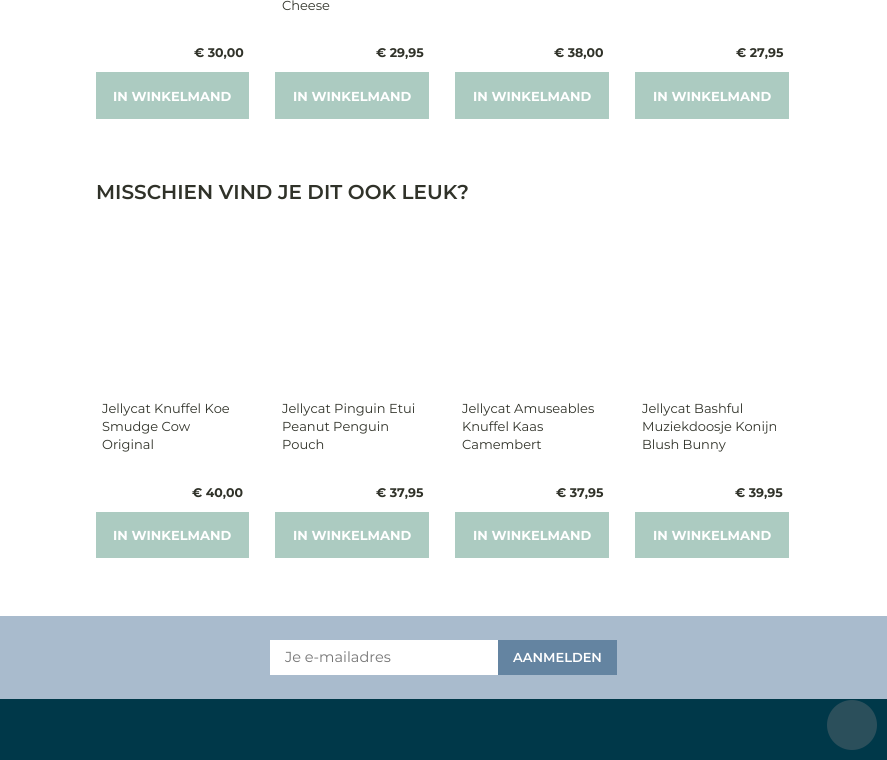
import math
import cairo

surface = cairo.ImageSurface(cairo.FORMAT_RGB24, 887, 760)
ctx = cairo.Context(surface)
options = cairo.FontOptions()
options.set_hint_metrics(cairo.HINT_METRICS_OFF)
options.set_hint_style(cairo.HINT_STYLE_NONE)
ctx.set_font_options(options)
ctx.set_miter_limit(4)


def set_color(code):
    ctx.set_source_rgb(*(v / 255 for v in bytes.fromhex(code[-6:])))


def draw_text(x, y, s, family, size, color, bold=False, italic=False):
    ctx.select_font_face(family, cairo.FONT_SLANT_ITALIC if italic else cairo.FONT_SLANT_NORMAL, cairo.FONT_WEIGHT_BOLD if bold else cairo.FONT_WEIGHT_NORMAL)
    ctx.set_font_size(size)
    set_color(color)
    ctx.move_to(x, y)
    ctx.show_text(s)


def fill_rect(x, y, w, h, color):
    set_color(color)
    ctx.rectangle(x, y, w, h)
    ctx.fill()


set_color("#ffffff")
ctx.paint()
draw_text(194, 57, "€ 30,00", "Montserrat", 12.5, "#303229", bold=True)
fill_rect(96, 72, 153, 47, "#accbc1")
draw_text(113, 101, "IN WINKELMAND", "Montserrat", 13, "#ffffff", bold=True)
draw_text(282, 10, "Cheese", "Montserrat", 13, "#303229")
draw_text(376, 57, "€ 29,95", "Montserrat", 12.5, "#303229", bold=True)
fill_rect(275, 72, 154, 47, "#accbc1")
draw_text(293, 101, "IN WINKELMAND", "Montserrat", 13, "#ffffff", bold=True)
draw_text(554, 57, "€ 38,00", "Montserrat", 12.5, "#303229", bold=True)
fill_rect(455, 72, 154, 47, "#accbc1")
draw_text(473, 101, "IN WINKELMAND", "Montserrat", 13, "#ffffff", bold=True)
draw_text(736, 57, "€ 27,95", "Montserrat", 12.5, "#303229", bold=True)
fill_rect(635, 72, 154, 47, "#accbc1")
draw_text(653, 101, "IN WINKELMAND", "Montserrat", 13, "#ffffff", bold=True)
draw_text(96, 199, "MISSCHIEN VIND JE DIT OOK LEUK?", "Montserrat SemiBold", 20, "#303229")
draw_text(102, 413, "Jellycat Knuffel Koe", "Montserrat", 13, "#303229")
draw_text(102, 431, "Smudge Cow", "Montserrat", 13, "#303229")
draw_text(102, 449, "Original", "Montserrat", 13, "#303229")
draw_text(192, 497, "€ 40,00", "Montserrat", 12.5, "#303229", bold=True)
fill_rect(96, 512, 153, 46, "#accbc1")
draw_text(113, 540, "IN WINKELMAND", "Montserrat", 13, "#ffffff", bold=True)
draw_text(282, 413, "Jellycat Pinguin Etui", "Montserrat", 13, "#303229")
draw_text(282, 431, "Peanut Penguin", "Montserrat", 13, "#303229")
draw_text(282, 449, "Pouch", "Montserrat", 13, "#303229")
draw_text(376, 497, "€ 37,95", "Montserrat", 12.5, "#303229", bold=True)
fill_rect(275, 512, 154, 46, "#accbc1")
draw_text(293, 540, "IN WINKELMAND", "Montserrat", 13, "#ffffff", bold=True)
draw_text(462, 413, "Jellycat Amuseables", "Montserrat", 13, "#303229")
draw_text(462, 431, "Knuffel Kaas", "Montserrat", 13, "#303229")
draw_text(462, 449, "Camembert", "Montserrat", 13, "#303229")
draw_text(556, 497, "€ 37,95", "Montserrat", 12.5, "#303229", bold=True)
fill_rect(455, 512, 154, 46, "#accbc1")
draw_text(473, 540, "IN WINKELMAND", "Montserrat", 13, "#ffffff", bold=True)
draw_text(642, 413, "Jellycat Bashful", "Montserrat", 13, "#303229")
draw_text(642, 431, "Muziekdoosje Konijn", "Montserrat", 13, "#303229")
draw_text(642, 449, "Blush Bunny", "Montserrat", 13, "#303229")
draw_text(735, 497, "€ 39,95", "Montserrat", 12.5, "#303229", bold=True)
fill_rect(635, 512, 154, 46, "#accbc1")
draw_text(653, 540, "IN WINKELMAND", "Montserrat", 13, "#ffffff", bold=True)
fill_rect(0, 616, 887, 83, "#a9bbcd")
fill_rect(270, 640, 228, 35, "#ffffff")
draw_text(285, 662, "Je e-mailadres", "Montserrat", 14.5, "#757575")
fill_rect(498, 640, 119, 35, "#6484a1")
draw_text(513, 662, "AANMELDEN", "Montserrat SemiBold", 13, "#ffffff")
fill_rect(0, 699, 887, 61, "#003849")
set_color("#2b4f5b")
ctx.new_path()
ctx.arc(852, 725, 25, 0, 2 * math.pi)
ctx.fill()
surface.write_to_png("output.png")
